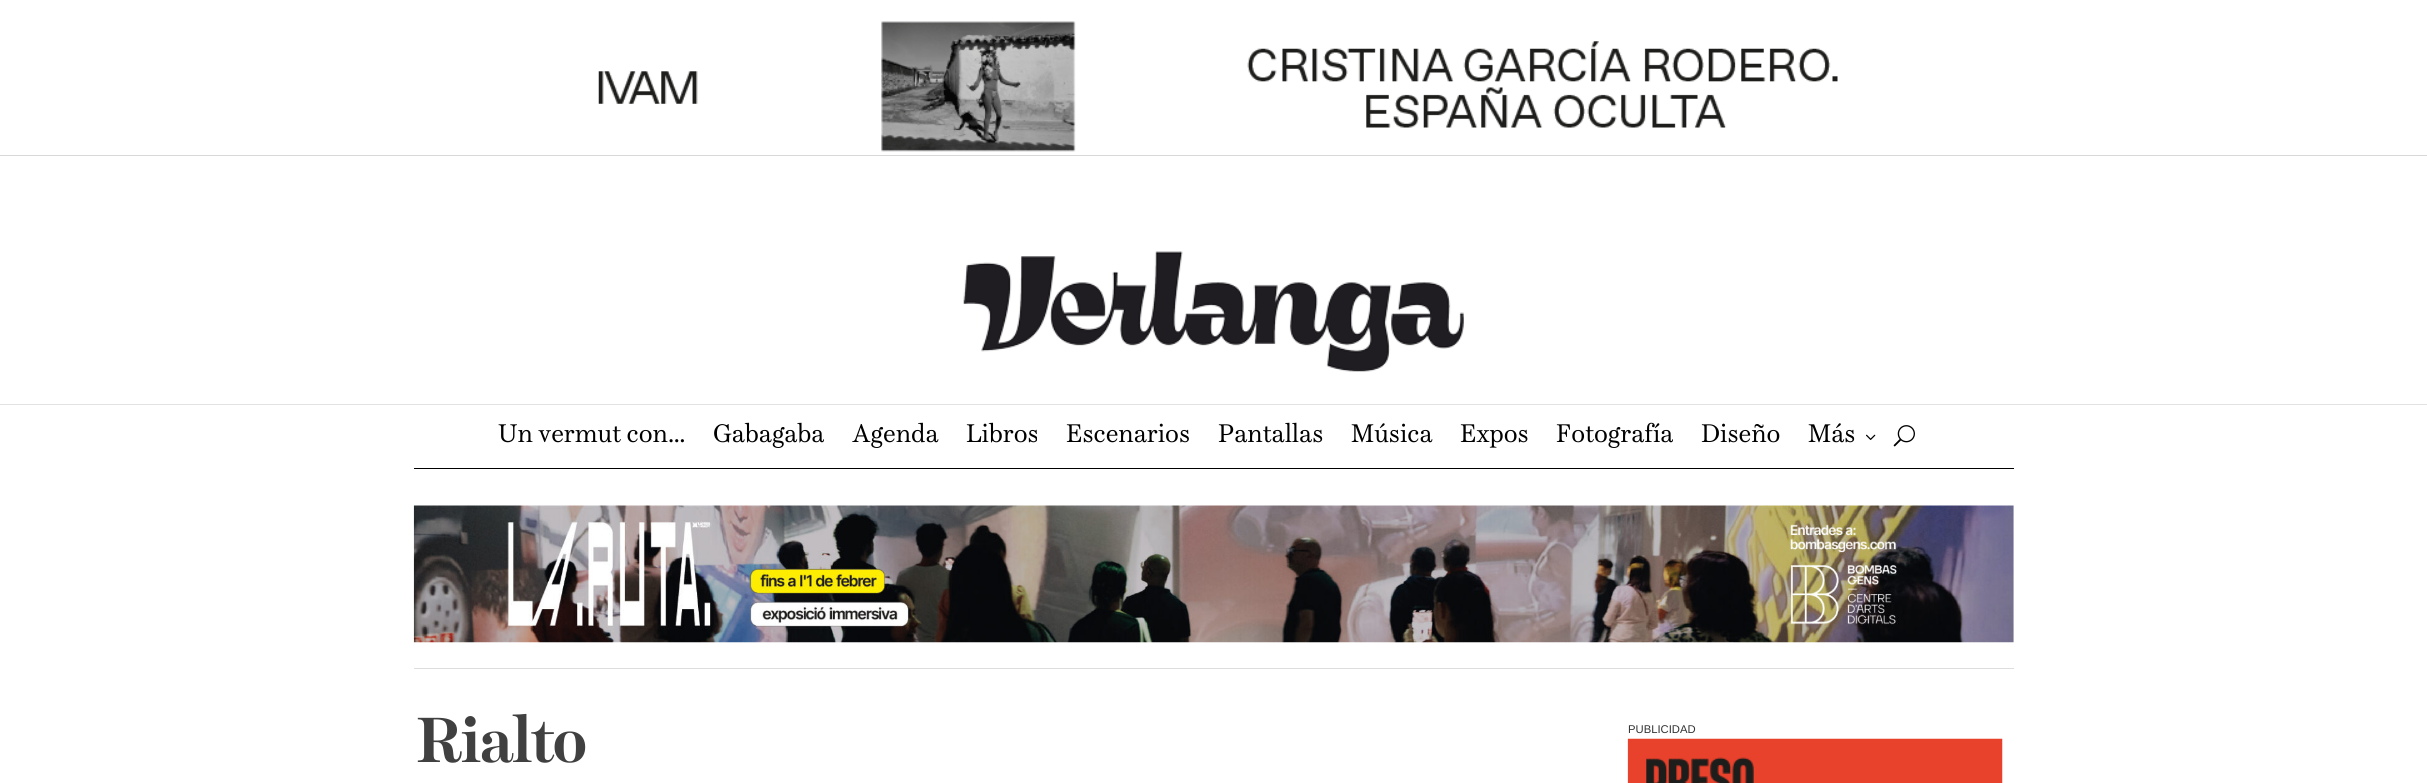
import math
import cairo

surface = cairo.ImageSurface(cairo.FORMAT_RGB24, 2427, 783)
ctx = cairo.Context(surface)
options = cairo.FontOptions()
options.set_hint_metrics(cairo.HINT_METRICS_OFF)
options.set_hint_style(cairo.HINT_STYLE_NONE)
ctx.set_font_options(options)
ctx.set_miter_limit(4)


def set_color(code):
    ctx.set_source_rgb(*(v / 255 for v in bytes.fromhex(code[-6:])))


def draw_text(x, y, s, family, size, color, bold=False, italic=False):
    ctx.select_font_face(family, cairo.FONT_SLANT_ITALIC if italic else cairo.FONT_SLANT_NORMAL, cairo.FONT_WEIGHT_BOLD if bold else cairo.FONT_WEIGHT_NORMAL)
    ctx.set_font_size(size)
    set_color(color)
    ctx.move_to(x, y)
    ctx.show_text(s)


def draw_spaced(x, y, s, letter, word):
    ctx.move_to(x, y)
    for ch in s:
        ctx.show_text(ch)
        ctx.rel_move_to(letter + word * (ch == ' '), 0)


def fill_rect(x, y, w, h, color):
    set_color(color)
    ctx.rectangle(x, y, w, h)
    ctx.fill()


def draw_image(path, x, y, w, h):
    ctx.save()
    ctx.set_source_surface(cairo.ImageSurface.create_from_png(path), x, y)
    ctx.rectangle(x, y, w, h)
    ctx.fill()
    ctx.restore()


set_color("#ffffff")
ctx.paint()
fill_rect(0, 155, 2427, 1, "#d8d8d8")
draw_image("assets/img1.png", 598, 21, 1240, 131)
draw_image("assets/img2.png", 963, 251, 501, 121)
fill_rect(0, 404, 2427, 1, "#e2e2e2")
fill_rect(414, 468, 1600, 1, "#000000")
draw_text(498, 442, "Un vermut con…", "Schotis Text", 25, "#000000")
draw_text(713, 442, "Gabagaba", "Schotis Text", 25, "#000000")
draw_text(852, 442, "Agenda", "Schotis Text", 25, "#000000")
draw_text(966, 442, "Libros", "Schotis Text", 25, "#000000")
draw_text(1066, 442, "Escenarios", "Schotis Text", 25, "#000000")
draw_text(1218, 442, "Pantallas", "Schotis Text", 25, "#000000")
draw_text(1351, 442, "Música", "Schotis Text", 25, "#000000")
draw_text(1460, 442, "Expos", "Schotis Text", 25, "#000000")
draw_text(1556, 442, "Fotografía", "Schotis Text", 25, "#000000")
draw_text(1701, 442, "Diseño", "Schotis Text", 25, "#000000")
draw_text(1808, 442, "Más", "Schotis Text", 25, "#000000")
draw_image("assets/img3.png", 1866, 434, 10, 6)
draw_image("assets/img4.png", 1893, 425, 22, 22)
fill_rect(414, 668, 1600, 1, "#dddddd")
draw_image("assets/img5.png", 413, 505, 1601, 138)
ctx.select_font_face("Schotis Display", cairo.FONT_SLANT_NORMAL, cairo.FONT_WEIGHT_BOLD)
ctx.set_font_size(62.5)
set_color("#404040")
draw_spaced(416, 762, "Rialto", -2, 0)
draw_text(1628, 733, "PUBLICIDAD", "Liberation Sans", 11.25, "#333333")
draw_image("assets/img6.png", 1627, 738, 376, 45)
surface.write_to_png("output.png")
